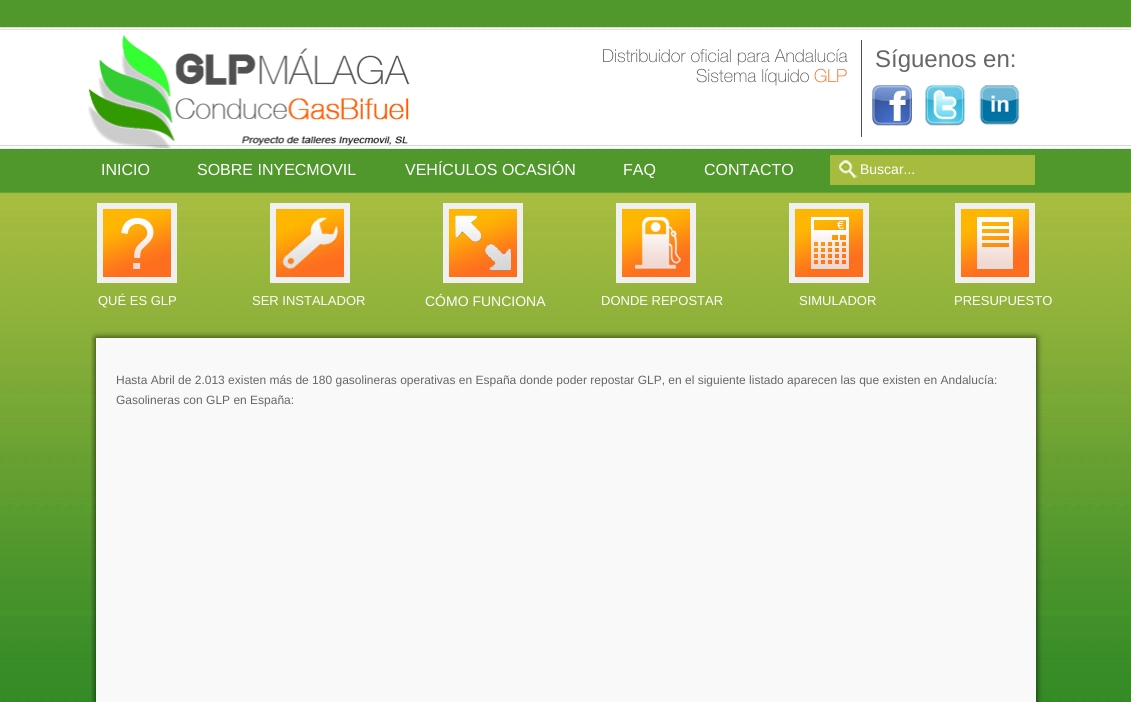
import math
import cairo

surface = cairo.ImageSurface(cairo.FORMAT_RGB24, 1131, 702)
ctx = cairo.Context(surface)
options = cairo.FontOptions()
options.set_hint_metrics(cairo.HINT_METRICS_OFF)
options.set_hint_style(cairo.HINT_STYLE_NONE)
ctx.set_font_options(options)
ctx.set_miter_limit(4)


def set_color(code):
    ctx.set_source_rgb(*(v / 255 for v in bytes.fromhex(code[-6:])))


def draw_text(x, y, s, family, size, color, bold=False, italic=False):
    ctx.select_font_face(family, cairo.FONT_SLANT_ITALIC if italic else cairo.FONT_SLANT_NORMAL, cairo.FONT_WEIGHT_BOLD if bold else cairo.FONT_WEIGHT_NORMAL)
    ctx.set_font_size(size)
    set_color(color)
    ctx.move_to(x, y)
    ctx.show_text(s)


def fill_rect(x, y, w, h, color):
    set_color(color)
    ctx.rectangle(x, y, w, h)
    ctx.fill()


def rounded_rect(x, y, w, h, r):
    ctx.new_sub_path()
    for i, (u, v) in enumerate([(x + w - r, y + h - r), (x + r, y + h - r), (x + r, y + r), (x + w - r, y + r)]):
        ctx.arc(u, v, r, i * math.pi / 2, (i + 1) * math.pi / 2)
    ctx.close_path()


def draw_shadow(x, y, w, h, r, blur, alpha):
    ctx.push_group_with_content(cairo.CONTENT_ALPHA)
    ctx.set_operator(cairo.OPERATOR_SOURCE)
    for i in range(15, -16, -2):
        e = blur * i / 6
        if min(w, h) + 2 * e > 0:
            ctx.set_source_rgba(0, 0, 0, alpha * math.erfc((i - 1) / 8.5) / 2)
            rounded_rect(x - e, y - e, w + 2 * e, h + 2 * e, max(0, min(r + e + blur * .6, min(w, h) / 2 + e)))
            ctx.fill()
    ctx.mask(ctx.pop_group())


def draw_image(path, x, y, w, h):
    ctx.save()
    ctx.set_source_surface(cairo.ImageSurface.create_from_png(path), x, y)
    ctx.rectangle(x, y, w, h)
    ctx.fill()
    ctx.restore()


set_color("#ffffff")
ctx.paint()
draw_image("assets/img1.png", 0, 0, 1131, 702)
draw_image("assets/img2.png", 88, 35, 322, 113)
draw_text(602, 62, "Distribuidor oficial para Andalucía", "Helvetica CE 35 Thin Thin", 18, "#505050")
draw_text(696, 82, "Sistema líquido", "Helvetica CE 35 Thin Thin", 18, "#505050")
draw_text(814, 82, "GLP", "Helvetica CE 35 Thin Thin", 18, "#ff5c03")
fill_rect(861, 40, 1, 97, "#505050")
draw_text(875, 67, "Síguenos en:", "Liberation Sans", 24, "#666666")
draw_image("assets/img3.png", 872, 85, 40, 41)
draw_image("assets/img4.png", 925, 85, 40, 41)
draw_image("assets/img5.png", 979, 85, 41, 41)
draw_text(101, 175, "INICIO", "Liberation Sans", 16, "#ffffff")
draw_text(197, 175, "SOBRE INYECMOVIL", "Liberation Sans", 16, "#ffffff")
draw_text(405, 175, "VEHÍCULOS OCASIÓN", "Liberation Sans", 16, "#ffffff")
draw_text(623, 175, "FAQ", "Liberation Sans", 16, "#ffffff")
draw_text(704, 175, "CONTACTO", "Liberation Sans", 16, "#ffffff")
draw_image("assets/img6.png", 830, 155, 205, 30)
draw_text(860, 174, "Buscar...", "Liberation Sans", 14, "#ffffff")
draw_image("assets/img7.png", 97, 203, 80, 80)
draw_image("assets/img8.png", 270, 203, 80, 80)
draw_image("assets/img9.png", 443, 203, 80, 80)
draw_image("assets/img10.png", 616, 203, 80, 80)
draw_image("assets/img11.png", 789, 203, 80, 80)
draw_image("assets/img12.png", 955, 203, 80, 80)
draw_text(98, 305, "QUÉ ES GLP", "Liberation Sans", 13, "#ffffff")
draw_text(252, 305, "SER INSTALADOR", "Liberation Sans", 13, "#ffffff")
draw_text(425, 306, "CÓMO FUNCIONA", "Liberation Sans", 14, "#ffffff")
draw_text(601, 305, "DONDE REPOSTAR", "Liberation Sans", 13, "#ffffff")
draw_text(799, 305, "SIMULADOR", "Liberation Sans", 13, "#ffffff")
draw_text(954, 305, "PRESUPUESTO", "Liberation Sans", 13, "#ffffff")
ctx.save()
ctx.rectangle(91, 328, 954, 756)
ctx.clip()
set_color("#000000")
draw_shadow(96, 338, 940, 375, 0, 3.5, 0.8)
ctx.restore()
fill_rect(96, 338, 940, 364, "#f9f9f9")
draw_text(116, 384, "Hasta Abril de 2.013 existen más de 180 gasolineras operativas en España donde poder repostar GLP, en el siguiente listado aparecen las que existen en Andalucía:", "Liberation Sans", 12, "#666666")
draw_text(116, 404, "Gasolineras con GLP en España:", "Liberation Sans", 12, "#666666")
surface.write_to_png("output.png")
